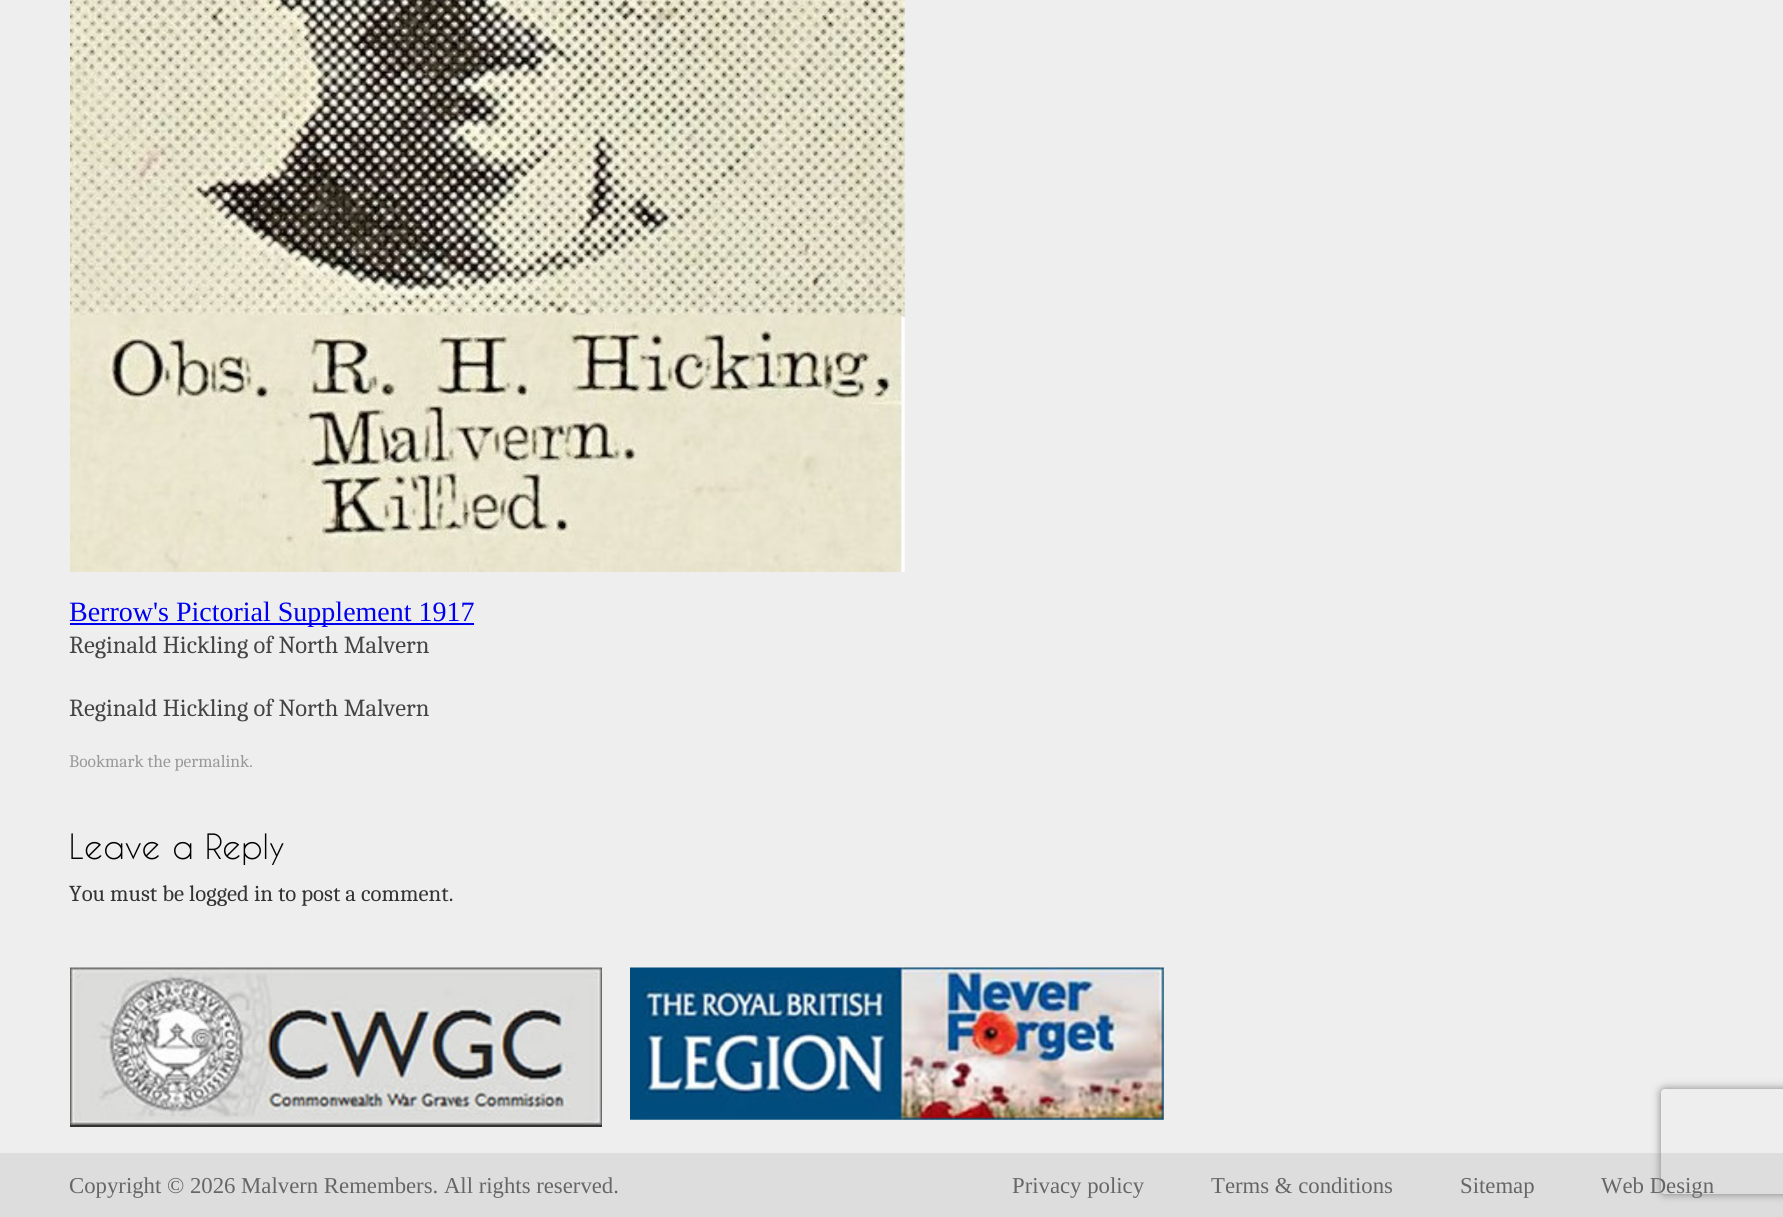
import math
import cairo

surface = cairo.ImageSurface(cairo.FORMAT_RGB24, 1783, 1217)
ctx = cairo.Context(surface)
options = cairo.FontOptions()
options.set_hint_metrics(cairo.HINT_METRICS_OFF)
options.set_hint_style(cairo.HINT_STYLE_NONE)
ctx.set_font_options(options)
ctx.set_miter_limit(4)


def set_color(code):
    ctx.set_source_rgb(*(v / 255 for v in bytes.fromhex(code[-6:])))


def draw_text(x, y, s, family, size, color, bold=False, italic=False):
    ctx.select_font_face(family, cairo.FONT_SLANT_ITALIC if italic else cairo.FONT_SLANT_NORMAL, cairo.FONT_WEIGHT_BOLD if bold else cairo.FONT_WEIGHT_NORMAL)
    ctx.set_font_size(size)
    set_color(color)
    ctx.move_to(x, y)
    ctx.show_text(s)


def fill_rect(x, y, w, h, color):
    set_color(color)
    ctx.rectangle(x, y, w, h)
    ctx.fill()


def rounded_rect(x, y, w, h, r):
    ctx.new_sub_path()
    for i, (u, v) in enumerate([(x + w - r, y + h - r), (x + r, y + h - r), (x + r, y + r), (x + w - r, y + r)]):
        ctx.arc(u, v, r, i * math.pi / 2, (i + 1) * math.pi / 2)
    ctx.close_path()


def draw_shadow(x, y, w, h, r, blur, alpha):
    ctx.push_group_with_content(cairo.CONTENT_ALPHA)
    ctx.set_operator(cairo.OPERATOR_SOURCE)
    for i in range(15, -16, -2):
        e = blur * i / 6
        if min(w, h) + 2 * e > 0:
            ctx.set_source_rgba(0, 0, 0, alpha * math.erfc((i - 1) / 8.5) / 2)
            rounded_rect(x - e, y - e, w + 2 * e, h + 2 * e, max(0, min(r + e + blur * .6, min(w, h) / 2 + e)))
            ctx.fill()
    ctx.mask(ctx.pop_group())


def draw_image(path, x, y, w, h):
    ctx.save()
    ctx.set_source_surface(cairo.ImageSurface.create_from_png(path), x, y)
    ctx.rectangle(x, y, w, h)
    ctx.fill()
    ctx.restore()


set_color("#eeeeee")
ctx.paint()
draw_image("assets/img1.png", 70, 0, 835, 572)
fill_rect(70, 623, 404, 2, "#0000ee")
draw_text(69, 621, "Berrow's Pictorial Supplement 1917", "Liberation Serif", 28, "#0000ee")
draw_text(69, 653, "Reginald Hickling of North Malvern", "Caladea", 24.5, "#444444")
draw_text(69, 716, "Reginald Hickling of North Malvern", "Caladea", 24.5, "#444444")
draw_text(69, 767, "Bookmark the permalink.", "Caladea", 17.5, "#999999")
draw_text(69, 859, "Leave a Reply", "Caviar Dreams", 32.75, "#000000")
draw_text(69, 901, "You must be logged in to post a comment.", "Caladea", 22.75, "#333333")
draw_image("assets/img2.png", 70, 967, 532, 158)
fill_rect(70, 1125, 532, 2, "#333333")
draw_image("assets/img3.png", 630, 967, 534, 153)
fill_rect(0, 1153, 1783, 64, "#dddddd")
draw_text(69, 1193, "Copyright © 2026 Malvern Remembers. All rights reserved.", "Liberation Serif", 22.75, "#666666")
draw_text(1012, 1193, "Privacy policy", "Liberation Serif", 22.75, "#666666")
draw_text(1211, 1193, "Terms & conditions", "Liberation Serif", 22.75, "#666666")
draw_text(1460, 1193, "Sitemap", "Liberation Serif", 22.75, "#666666")
draw_text(1601, 1193, "Web Design", "Liberation Serif", 22.75, "#666666")
ctx.save()
ctx.set_fill_rule(cairo.FILL_RULE_EVEN_ODD)
ctx.new_path()
ctx.move_to(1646, 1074)
ctx.line_to(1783, 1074)
ctx.line_to(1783, 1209)
ctx.line_to(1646, 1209)
ctx.close_path()
ctx.move_to(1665, 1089)
ctx.line_to(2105, 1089)
ctx.curve_to(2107, 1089, 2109, 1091, 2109, 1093)
ctx.line_to(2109, 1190)
ctx.curve_to(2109, 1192, 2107, 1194, 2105, 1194)
ctx.line_to(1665, 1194)
ctx.curve_to(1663, 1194, 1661, 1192, 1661, 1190)
ctx.line_to(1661, 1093)
ctx.curve_to(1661, 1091, 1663, 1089, 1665, 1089)
ctx.close_path()
ctx.clip()
set_color("#808080")
draw_shadow(1661, 1089, 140, 105, 4, 4.5, 1)
ctx.restore()
surface.write_to_png("output.png")
